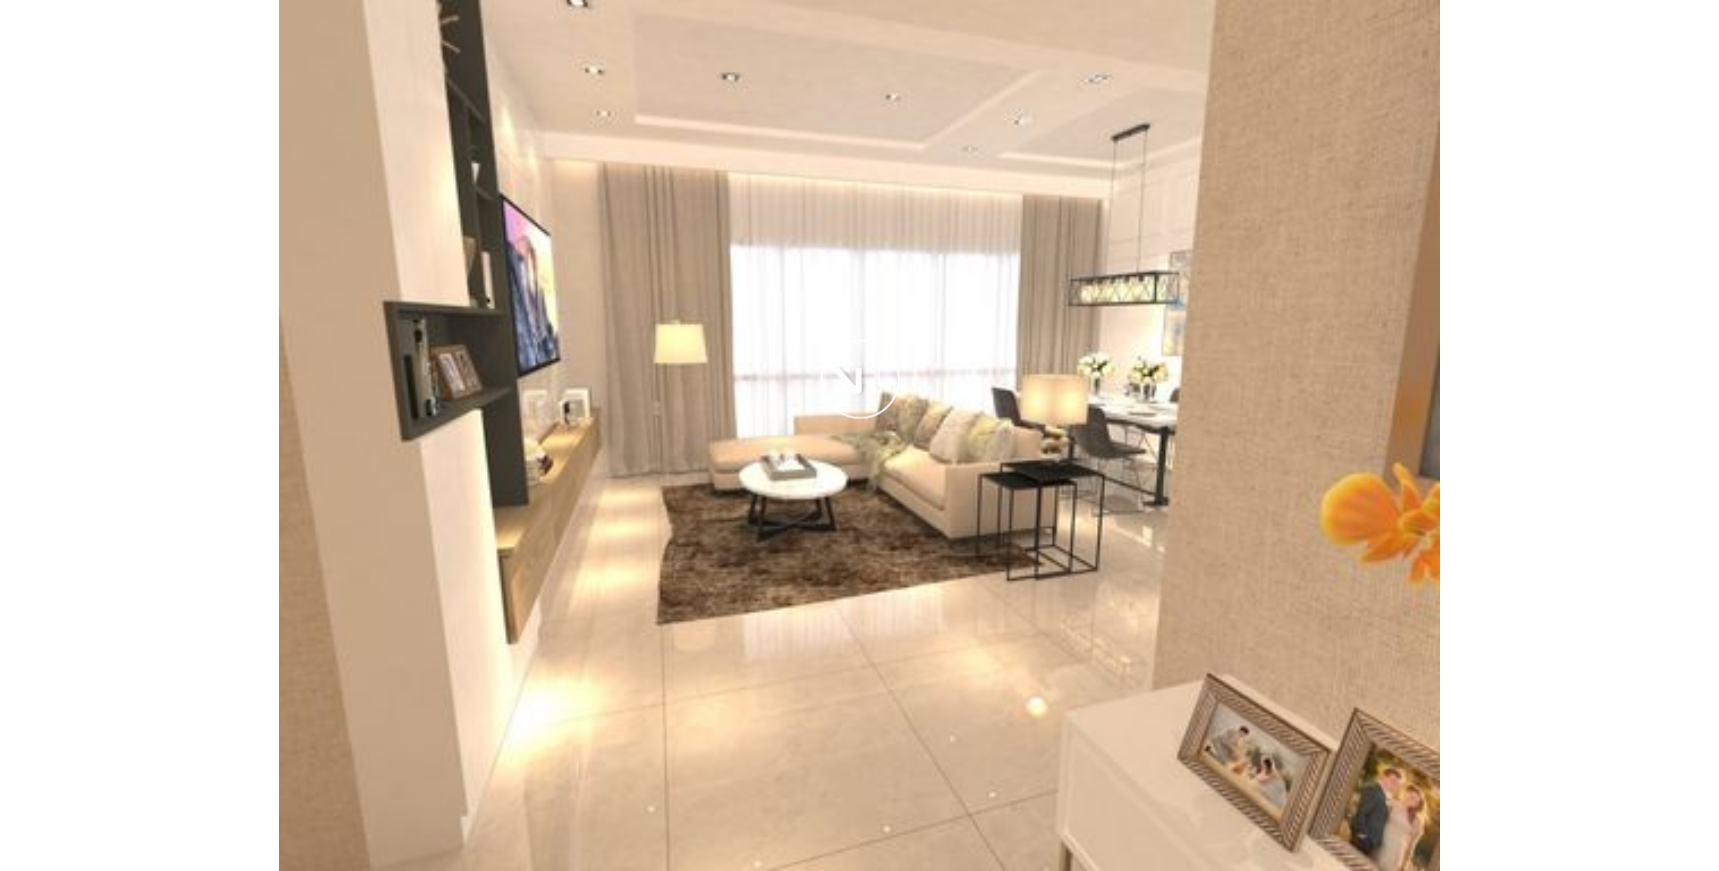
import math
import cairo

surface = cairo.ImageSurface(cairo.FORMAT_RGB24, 1719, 871)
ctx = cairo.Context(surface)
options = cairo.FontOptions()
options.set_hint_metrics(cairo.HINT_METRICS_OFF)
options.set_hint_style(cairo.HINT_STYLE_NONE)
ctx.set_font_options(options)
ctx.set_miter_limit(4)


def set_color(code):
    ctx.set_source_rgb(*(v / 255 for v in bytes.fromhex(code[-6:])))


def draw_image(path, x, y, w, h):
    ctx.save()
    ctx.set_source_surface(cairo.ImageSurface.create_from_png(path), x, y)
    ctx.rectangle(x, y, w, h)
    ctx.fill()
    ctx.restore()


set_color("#ffffff")
ctx.paint()
draw_image("assets/img1.png", 279, 0, 1161, 871)
draw_image("assets/img2.png", 820, 339, 80, 80)
surface.write_to_png("output.png")
